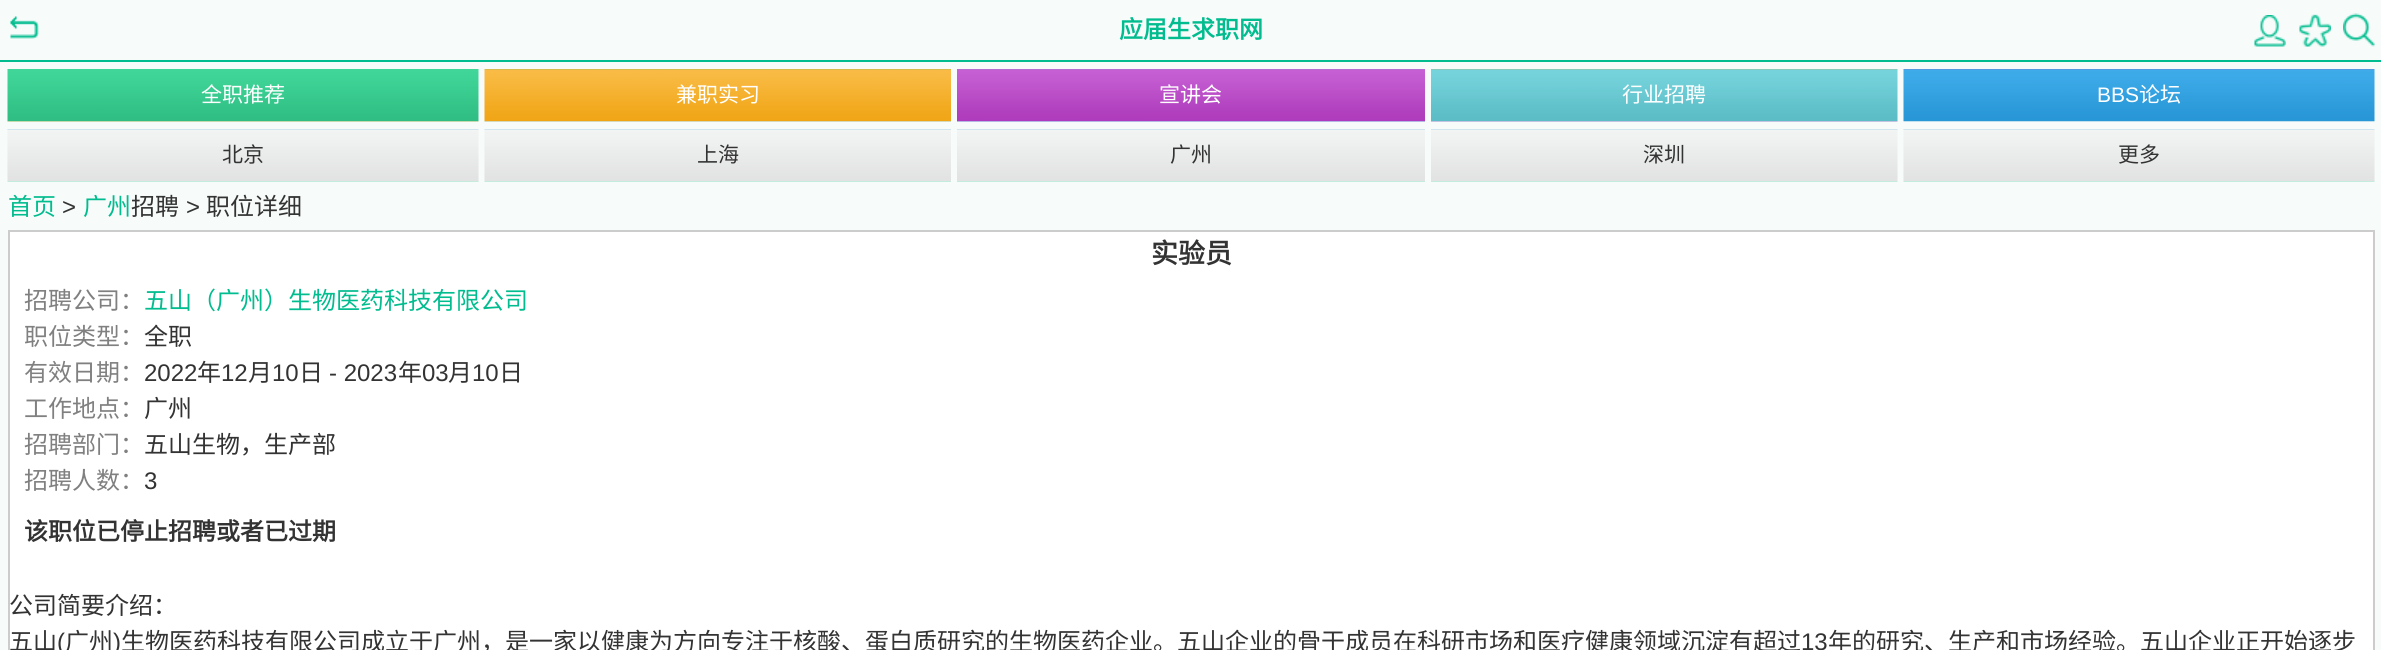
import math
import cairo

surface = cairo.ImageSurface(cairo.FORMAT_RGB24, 2381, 650)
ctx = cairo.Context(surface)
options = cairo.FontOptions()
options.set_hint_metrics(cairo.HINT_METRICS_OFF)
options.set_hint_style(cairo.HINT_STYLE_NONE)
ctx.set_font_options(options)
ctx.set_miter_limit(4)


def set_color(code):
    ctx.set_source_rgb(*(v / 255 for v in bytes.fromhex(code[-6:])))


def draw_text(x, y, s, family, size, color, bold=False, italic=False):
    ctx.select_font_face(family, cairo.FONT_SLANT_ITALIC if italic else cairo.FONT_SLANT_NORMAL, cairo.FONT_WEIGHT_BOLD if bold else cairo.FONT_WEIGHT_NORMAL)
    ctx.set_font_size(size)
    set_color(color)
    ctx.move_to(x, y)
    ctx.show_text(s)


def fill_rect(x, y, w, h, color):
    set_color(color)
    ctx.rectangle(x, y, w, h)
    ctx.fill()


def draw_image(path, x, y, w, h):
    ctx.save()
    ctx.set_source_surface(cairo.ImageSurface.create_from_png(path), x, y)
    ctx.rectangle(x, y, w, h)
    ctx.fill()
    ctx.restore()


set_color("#f7fbfa")
ctx.paint()
fill_rect(0, 60, 2381, 2, "#01bc8e")
draw_image("assets/img1.png", 10, 16, 29, 23)
draw_text(1119, 38, "应届生求职网", "Noto Sans CJK SC", 24, "#01bc8e", bold=True)
draw_image("assets/img2.png", 2254, 15, 32, 32)
draw_image("assets/img3.png", 2299, 14, 32, 33)
draw_image("assets/img4.png", 2343, 13, 32, 34)
draw_image("assets/img5.png", 7, 69, 472, 53)
draw_text(201, 102, "全职推荐", "Noto Sans CJK SC", 21, "#ffffff")
draw_image("assets/img6.png", 484, 69, 467, 53)
draw_text(676, 102, "兼职实习", "Noto Sans CJK SC", 21, "#ffffff")
draw_image("assets/img7.png", 957, 69, 468, 53)
draw_text(1159, 102, "宣讲会", "Noto Sans CJK SC", 21, "#ffffff")
draw_image("assets/img8.png", 1431, 69, 467, 53)
draw_text(1622, 102, "行业招聘", "Noto Sans CJK SC", 21, "#ffffff")
draw_image("assets/img9.png", 1903, 69, 472, 53)
draw_text(2097, 102, "BBS", "Liberation Sans", 21, "#ffffff")
draw_text(2139, 102, "论坛", "Noto Sans CJK SC", 21, "#ffffff")
draw_image("assets/img10.png", 7, 129, 472, 53)
draw_text(222, 162, "北京", "Noto Sans CJK SC", 21, "#333333")
draw_image("assets/img11.png", 484, 129, 467, 53)
draw_text(697, 162, "上海", "Noto Sans CJK SC", 21, "#333333")
draw_image("assets/img12.png", 957, 129, 468, 53)
draw_text(1170, 162, "广州", "Noto Sans CJK SC", 21, "#333333")
draw_image("assets/img13.png", 1431, 129, 467, 53)
draw_text(1643, 162, "深圳", "Noto Sans CJK SC", 21, "#333333")
draw_image("assets/img10.png", 1903, 129, 472, 53)
draw_text(2118, 162, "更多", "Noto Sans CJK SC", 21, "#333333")
draw_text(8, 215, "首页", "Noto Sans CJK SC", 24, "#01bc8e")
draw_text(62, 215, ">", "Liberation Sans", 24, "#333333")
draw_text(83, 215, "广州", "Noto Sans CJK SC", 24, "#01bc8e")
draw_text(131, 215, "招聘", "Noto Sans CJK SC", 24, "#333333")
draw_text(186, 215, ">", "Liberation Sans", 24, "#333333")
draw_text(206, 215, "职位详细", "Noto Sans CJK SC", 24, "#333333")
set_color("#ffffff")
ctx.rectangle(9, 231, 2365, 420)
ctx.fill_preserve()
set_color("#cccccc")
ctx.stroke()
draw_text(1151, 263, "实验员", "Noto Sans CJK SC", 27, "#333333", bold=True)
draw_text(24, 309, "招聘公司：", "Noto Sans CJK SC", 24, "#808080")
draw_text(144, 309, "五山（广州）生物医药科技有限公司", "Noto Sans CJK SC", 24, "#01bc8e")
draw_text(24, 345, "职位类型：", "Noto Sans CJK SC", 24, "#808080")
draw_text(144, 345, "全职", "Noto Sans CJK SC", 24, "#333333")
draw_text(24, 381, "有效日期：", "Noto Sans CJK SC", 24, "#808080")
draw_text(144, 381, "2022", "Liberation Sans", 24, "#333333")
draw_text(197, 381, "年", "Noto Sans CJK SC", 24, "#333333")
draw_text(221, 381, "12", "Liberation Sans", 24, "#333333")
draw_text(248, 381, "月", "Noto Sans CJK SC", 24, "#333333")
draw_text(272, 381, "10", "Liberation Sans", 24, "#333333")
draw_text(299, 381, "日", "Noto Sans CJK SC", 24, "#333333")
draw_text(329, 381, "- 2023", "Liberation Sans", 24, "#333333")
draw_text(398, 381, "年", "Noto Sans CJK SC", 24, "#333333")
draw_text(422, 381, "03", "Liberation Sans", 24, "#333333")
draw_text(448, 381, "月", "Noto Sans CJK SC", 24, "#333333")
draw_text(472, 381, "10", "Liberation Sans", 24, "#333333")
draw_text(499, 381, "日", "Noto Sans CJK SC", 24, "#333333")
draw_text(24, 417, "工作地点：", "Noto Sans CJK SC", 24, "#808080")
draw_text(144, 417, "广州", "Noto Sans CJK SC", 24, "#333333")
draw_text(24, 453, "招聘部门：", "Noto Sans CJK SC", 24, "#808080")
draw_text(144, 453, "五山生物，生产部", "Noto Sans CJK SC", 24, "#333333")
draw_text(24, 489, "招聘人数：", "Noto Sans CJK SC", 24, "#808080")
draw_text(144, 489, "3", "Liberation Sans", 24, "#333333")
draw_text(24, 540, "该职位已停止招聘或者已过期", "Noto Sans CJK SC", 24, "#333333", bold=True)
draw_text(9, 614, "公司简要介绍：", "Noto Sans CJK SC", 24, "#333333")
draw_text(9, 650, "五山", "Noto Sans CJK SC", 24, "#333333")
draw_text(57, 650, "(", "Liberation Sans", 24, "#333333")
draw_text(65, 650, "广州", "Noto Sans CJK SC", 24, "#333333")
draw_text(113, 650, ")", "Liberation Sans", 24, "#333333")
draw_text(121, 650, "生物医药科技有限公司成立于广州，是一家以健康为方向专注于核酸、蛋白质研究的生物医药企业。五山企业的骨干成员在科研市场和医疗健康领域沉淀有超过", "Noto Sans CJK SC", 24, "#333333")
draw_text(1801, 650, "13", "Liberation Sans", 24, "#333333")
draw_text(1828, 650, "年的研究、生产和市场经验。五山企业正开始逐步", "Noto Sans CJK SC", 24, "#333333")
surface.write_to_png("output.png")
